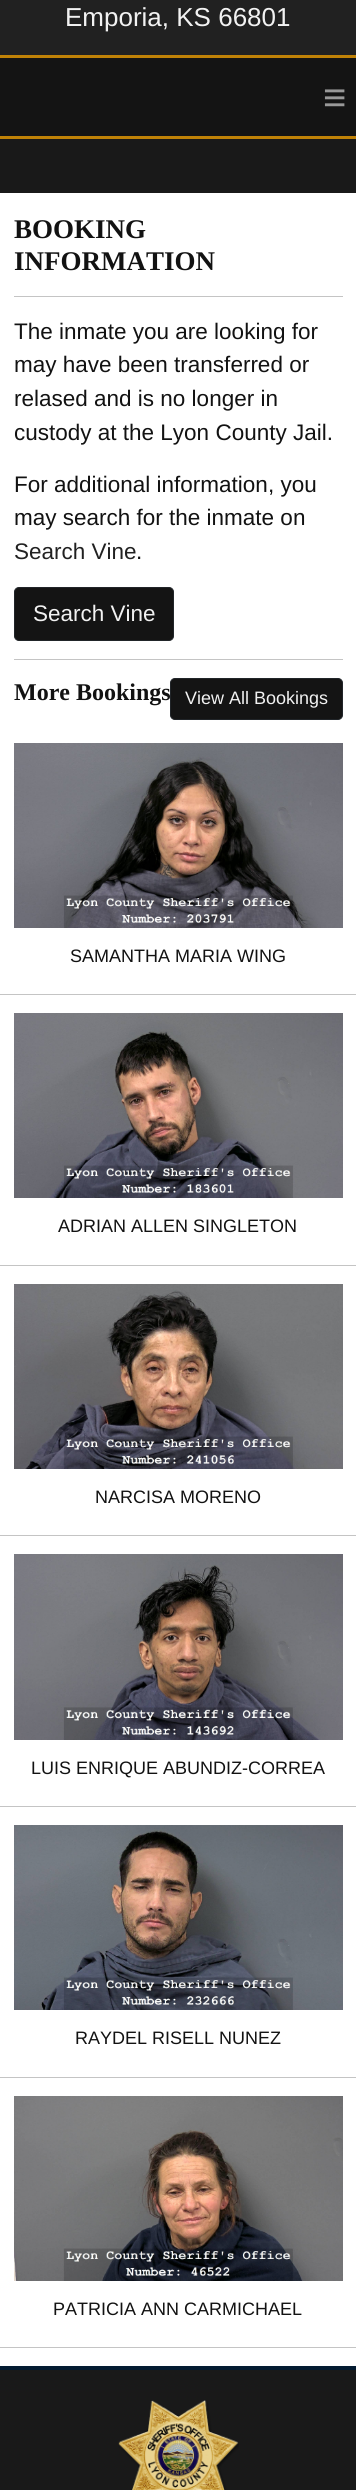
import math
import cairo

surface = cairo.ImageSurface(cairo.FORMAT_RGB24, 356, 2490)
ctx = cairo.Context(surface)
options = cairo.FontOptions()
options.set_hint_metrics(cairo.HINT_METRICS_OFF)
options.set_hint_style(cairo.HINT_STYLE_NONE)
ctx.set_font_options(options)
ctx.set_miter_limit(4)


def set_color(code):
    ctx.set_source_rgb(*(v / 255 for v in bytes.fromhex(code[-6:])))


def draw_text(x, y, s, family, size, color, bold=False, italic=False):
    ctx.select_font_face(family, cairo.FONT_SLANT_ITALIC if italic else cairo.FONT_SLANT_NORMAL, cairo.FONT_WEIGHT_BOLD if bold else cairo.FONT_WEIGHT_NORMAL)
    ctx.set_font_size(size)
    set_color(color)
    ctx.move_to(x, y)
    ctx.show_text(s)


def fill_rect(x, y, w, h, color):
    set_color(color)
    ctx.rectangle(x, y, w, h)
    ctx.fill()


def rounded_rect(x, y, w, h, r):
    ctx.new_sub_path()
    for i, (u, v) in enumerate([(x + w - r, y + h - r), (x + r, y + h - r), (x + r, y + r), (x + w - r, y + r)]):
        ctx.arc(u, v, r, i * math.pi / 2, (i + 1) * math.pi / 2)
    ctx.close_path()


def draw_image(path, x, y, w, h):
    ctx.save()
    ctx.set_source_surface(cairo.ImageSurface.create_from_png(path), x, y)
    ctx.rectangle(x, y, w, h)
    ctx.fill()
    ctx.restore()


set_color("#ffffff")
ctx.paint()
fill_rect(0, 0, 356, 55, "#212121")
draw_text(65, 26, "Emporia, KS 66801", "Liberation Sans", 26, "#f2f2f2")
fill_rect(0, 58, 356, 78, "#141414")
fill_rect(0, 55, 356, 3, "#c08207")
fill_rect(0, 136, 356, 3, "#c08207")
draw_text(323, 111, "≡", "Liberation Sans", 40, "#999999", bold=True)
fill_rect(0, 139, 356, 54, "#191919")
draw_text(14, 238, "BOOKING", "Liberation Serif", 27, "#121212", bold=True)
draw_text(14, 270, "INFORMATION", "Liberation Serif", 27, "#121212", bold=True)
fill_rect(14, 296, 329, 1, "#c4c4c4")
draw_text(14, 339, "The inmate you are looking for", "Liberation Sans", 22.5, "#121212")
draw_text(14, 372, "may have been transferred or", "Liberation Sans", 22.5, "#121212")
draw_text(14, 406, "relased and is no longer in", "Liberation Sans", 22.5, "#121212")
draw_text(14, 440, "custody at the Lyon County Jail.", "Liberation Sans", 22.5, "#121212")
draw_text(14, 492, "For additional information, you", "Liberation Sans", 22.5, "#121212")
draw_text(14, 525, "may search for the inmate on", "Liberation Sans", 22.5, "#121212")
draw_text(14, 559, "Search Vine", "Liberation Sans", 22.5, "#212121")
draw_text(136, 559, ".", "Liberation Sans", 22.5, "#121212")
set_color("#141414")
rounded_rect(14.5, 587.5, 159, 53, 4.5)
ctx.fill_preserve()
set_color("#212529")
ctx.set_line_width(1)
ctx.stroke()
draw_text(33, 621, "Search Vine", "Liberation Sans", 22.5, "#f2f2f2")
fill_rect(14, 659, 329, 1, "#c4c4c4")
draw_text(14, 700, "More Bookings", "Liberation Serif", 24, "#121212", bold=True)
set_color("#141414")
rounded_rect(170.5, 678.5, 172, 41, 4.5)
ctx.fill_preserve()
set_color("#212529")
ctx.stroke()
draw_text(185, 704, "View All Bookings", "Liberation Sans", 18, "#f2f2f2")
draw_image("assets/img1.png", 14, 743, 329, 185)
draw_text(70, 962, "SAMANTHA MARIA WING", "Liberation Sans", 18, "#121212")
fill_rect(0, 994, 356, 1, "#c4c4c4")
draw_image("assets/img2.png", 14, 1013, 329, 185)
draw_text(58, 1232, "ADRIAN ALLEN SINGLETON", "Liberation Sans", 18, "#121212")
fill_rect(0, 1265, 356, 1, "#c4c4c4")
draw_image("assets/img3.png", 14, 1284, 329, 185)
draw_text(95, 1503, "NARCISA MORENO", "Liberation Sans", 18, "#121212")
fill_rect(0, 1535, 356, 1, "#c4c4c4")
draw_image("assets/img4.png", 14, 1554, 329, 186)
draw_text(31, 1774, "LUIS ENRIQUE ABUNDIZ-CORREA", "Liberation Sans", 18, "#121212")
fill_rect(0, 1806, 356, 1, "#c4c4c4")
draw_image("assets/img5.png", 14, 1825, 329, 185)
draw_text(75, 2044, "RAYDEL RISELL NUNEZ", "Liberation Sans", 18, "#121212")
fill_rect(0, 2077, 356, 1, "#c4c4c4")
draw_image("assets/img6.png", 14, 2096, 329, 185)
draw_text(53, 2315, "PATRICIA ANN CARMICHAEL", "Liberation Sans", 18, "#121212")
fill_rect(0, 2347, 356, 1, "#c4c4c4")
fill_rect(0, 2370, 356, 120, "#191919")
fill_rect(0, 2366, 356, 4, "#031b31")
draw_image("assets/img7.png", 118, 2400, 121, 90)
surface.write_to_png("output.png")
